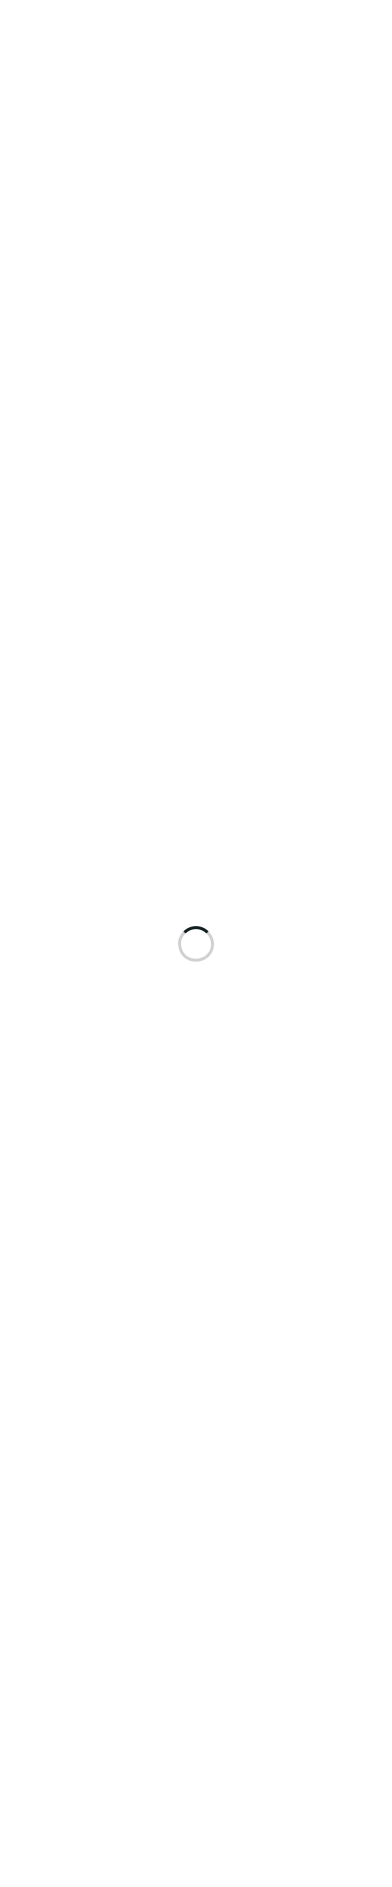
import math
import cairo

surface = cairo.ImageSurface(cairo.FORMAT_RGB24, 392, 1887)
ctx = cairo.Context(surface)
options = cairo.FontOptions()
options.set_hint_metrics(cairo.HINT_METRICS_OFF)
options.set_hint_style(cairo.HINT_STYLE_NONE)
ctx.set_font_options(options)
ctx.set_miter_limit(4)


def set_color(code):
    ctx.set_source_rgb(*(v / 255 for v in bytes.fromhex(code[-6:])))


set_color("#ffffff")
ctx.paint()
ctx.new_path()
ctx.move_to(184.5, 932.5)
ctx.curve_to(190.5, 926, 201.5, 926, 207.5, 932.5)
set_color("#121d1f")
ctx.set_line_width(3)
ctx.stroke()
ctx.new_path()
ctx.move_to(207.5, 932.5)
ctx.curve_to(210.5, 935.5, 212.5, 939.5, 212.5, 944)
ctx.curve_to(212.5, 963.5, 183.5, 966.5, 180, 947)
ctx.curve_to(178.5, 942, 180.5, 936, 184.5, 932.5)
ctx.set_source_rgba(0.071, 0.114, 0.122, 0.2)
ctx.stroke()
surface.write_to_png("output.png")
